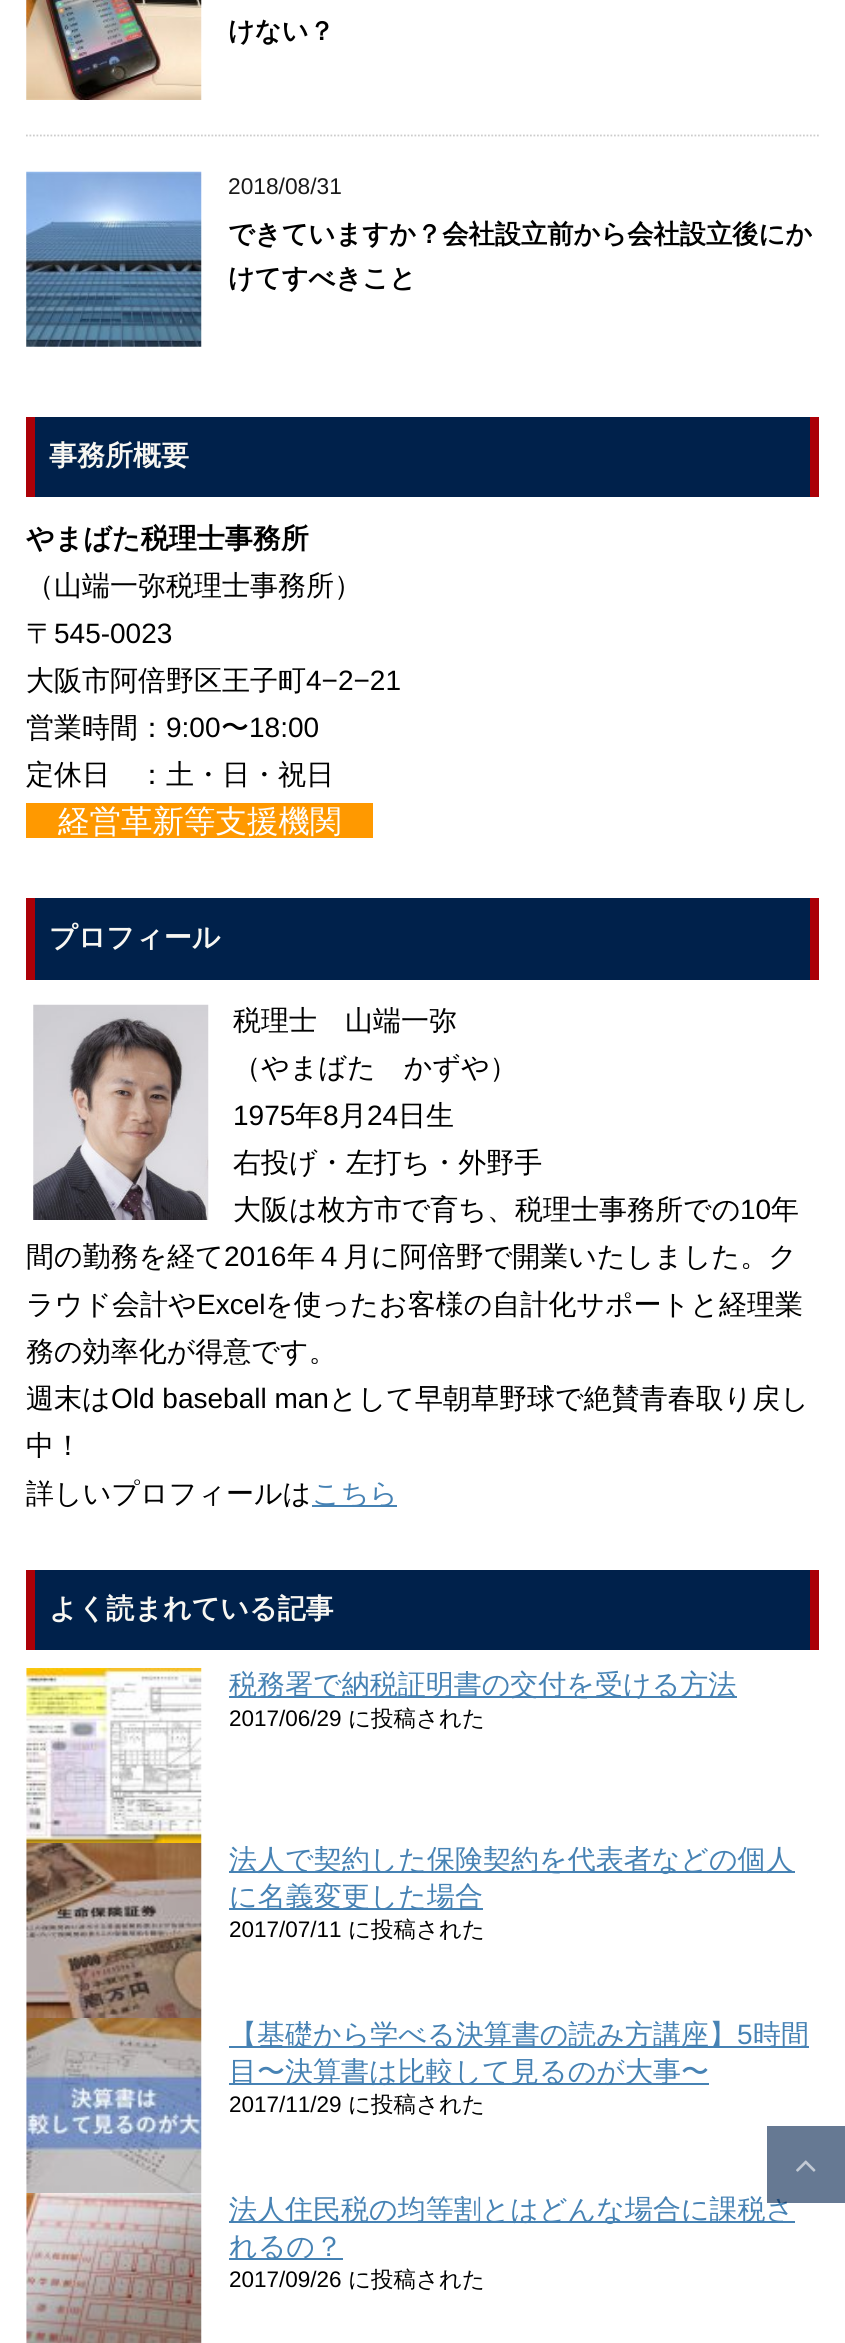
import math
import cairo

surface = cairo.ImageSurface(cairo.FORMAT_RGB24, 845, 2343)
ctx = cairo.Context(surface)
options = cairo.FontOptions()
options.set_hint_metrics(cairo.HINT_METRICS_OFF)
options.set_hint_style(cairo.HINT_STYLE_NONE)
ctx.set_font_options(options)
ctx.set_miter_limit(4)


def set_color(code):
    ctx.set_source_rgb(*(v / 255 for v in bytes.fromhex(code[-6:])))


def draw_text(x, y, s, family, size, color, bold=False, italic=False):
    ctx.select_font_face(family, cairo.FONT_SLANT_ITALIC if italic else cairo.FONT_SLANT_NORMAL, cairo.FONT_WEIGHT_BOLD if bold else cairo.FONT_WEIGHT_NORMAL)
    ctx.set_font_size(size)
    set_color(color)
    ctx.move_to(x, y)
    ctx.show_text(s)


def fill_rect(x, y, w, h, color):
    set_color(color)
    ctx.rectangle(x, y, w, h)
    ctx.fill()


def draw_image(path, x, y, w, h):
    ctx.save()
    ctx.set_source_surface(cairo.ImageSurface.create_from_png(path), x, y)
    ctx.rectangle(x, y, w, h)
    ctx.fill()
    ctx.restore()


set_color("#ffffff")
ctx.paint()
ctx.new_path()
ctx.move_to(26, 135.5)
ctx.line_to(819, 135.5)
set_color("#cccccc")
ctx.set_line_width(1.8)
ctx.set_dash([1.75, 1.75])
ctx.stroke()
draw_image("assets/img1.png", 26, 0, 176, 100)
draw_text(228, 40, "けない？", "WenQuanYi Zen Hei", 26.25, "#000000", bold=True)
draw_image("assets/img2.png", 26, 171, 176, 176)
draw_text(228, 194, "2018/08/31", "Liberation Sans", 22.75, "#1a1a1a")
draw_text(228, 243, "できていますか？会社設立前から会社設立後にか", "WenQuanYi Zen Hei", 26.25, "#000000", bold=True)
draw_text(228, 287, "けてすべきこと", "WenQuanYi Zen Hei", 26.25, "#000000", bold=True)
fill_rect(35, 417, 775, 80, "#00214b")
fill_rect(810, 417, 9, 80, "#ab0007")
fill_rect(26, 417, 9, 80, "#ab0007")
draw_text(49, 465, "事務所概要", "WenQuanYi Zen Hei", 28, "#f8f7f2", bold=True)
draw_text(26, 548, "やまばた税理士事務所", "WenQuanYi Zen Hei", 28, "#000000", bold=True)
draw_text(26, 595, "（山端一弥税理士事務所）", "WenQuanYi Zen Hei Medium", 28, "#000000")
draw_text(26, 643, "〒", "WenQuanYi Zen Hei Medium", 28, "#000000")
draw_text(54, 643, "545-0023", "Liberation Sans", 28, "#000000")
draw_text(26, 690, "大阪市阿倍野区王子町", "WenQuanYi Zen Hei Medium", 28, "#000000")
draw_text(306, 690, "4−2−21", "Liberation Sans", 28, "#000000")
draw_text(26, 737, "営業時間：", "WenQuanYi Zen Hei Medium", 28, "#000000")
draw_text(166, 737, "9:00", "Liberation Sans", 28, "#000000")
draw_text(221, 737, "〜", "WenQuanYi Zen Hei Medium", 28, "#000000")
draw_text(249, 737, "18:00", "Liberation Sans", 28, "#000000")
draw_text(26, 784, "定休日　：土・日・祝日", "WenQuanYi Zen Hei Medium", 28, "#000000")
fill_rect(26, 803, 347, 35, "#ff9900")
draw_text(58, 832, "経営革新等支援機関", "WenQuanYi Zen Hei Medium", 31.5, "#ffffff")
fill_rect(35, 898, 775, 82, "#00214b")
fill_rect(810, 898, 9, 82, "#ab0007")
fill_rect(26, 898, 9, 82, "#ab0007")
draw_text(49, 947, "プロフィール", "WenQuanYi Zen Hei", 28, "#f8f7f2", bold=True)
draw_image("assets/img3.png", 33, 1004, 176, 216)
draw_text(233, 1030, "税理士　山端一弥", "WenQuanYi Zen Hei Medium", 28, "#000000")
draw_text(233, 1077, "（やまばた　かずや）", "WenQuanYi Zen Hei Medium", 28, "#000000")
draw_text(233, 1125, "1975", "Liberation Sans", 28, "#000000")
draw_text(295, 1125, "年", "WenQuanYi Zen Hei Medium", 28, "#000000")
draw_text(323, 1125, "8", "Liberation Sans", 28, "#000000")
draw_text(339, 1125, "月", "WenQuanYi Zen Hei Medium", 28, "#000000")
draw_text(367, 1125, "24", "Liberation Sans", 28, "#000000")
draw_text(398, 1125, "日生", "WenQuanYi Zen Hei Medium", 28, "#000000")
draw_text(233, 1172, "右投げ・左打ち・外野手", "WenQuanYi Zen Hei Medium", 28, "#000000")
draw_text(233, 1219, "大阪は枚方市で育ち、税理士事務所での", "WenQuanYi Zen Hei Medium", 28, "#000000")
draw_text(740, 1219, "10", "Liberation Sans", 28, "#000000")
draw_text(771, 1219, "年", "WenQuanYi Zen Hei Medium", 28, "#000000")
draw_text(26, 1266, "間の勤務を経て", "WenQuanYi Zen Hei Medium", 28, "#000000")
draw_text(224, 1266, "2016", "Liberation Sans", 28, "#000000")
draw_text(287, 1266, "年４月に阿倍野で開業いたしました。ク", "WenQuanYi Zen Hei Medium", 28, "#000000")
draw_text(26, 1314, "ラウド会計や", "WenQuanYi Zen Hei Medium", 28, "#000000")
draw_text(197, 1314, "Excel", "Liberation Sans", 28, "#000000")
draw_text(265, 1314, "を使ったお客様の自計化サポートと経理業", "WenQuanYi Zen Hei Medium", 28, "#000000")
draw_text(26, 1361, "務の効率化が得意です。", "WenQuanYi Zen Hei Medium", 28, "#000000")
draw_text(26, 1408, "週末は", "WenQuanYi Zen Hei Medium", 28, "#000000")
draw_text(111, 1408, "Old baseball man", "Liberation Sans", 28, "#000000")
draw_text(329, 1408, "として早朝草野球で絶賛青春取り戻し", "WenQuanYi Zen Hei Medium", 28, "#000000")
draw_text(26, 1455, "中！", "WenQuanYi Zen Hei Medium", 28, "#000000")
draw_text(26, 1503, "詳しいプロフィールは", "WenQuanYi Zen Hei Medium", 28, "#000000")
fill_rect(312, 1505, 85, 2, "#4682b4")
draw_text(312, 1503, "こちら", "WenQuanYi Zen Hei Medium", 28, "#4682b4")
fill_rect(35, 1570, 775, 80, "#00214b")
fill_rect(810, 1570, 9, 80, "#ab0007")
fill_rect(26, 1570, 9, 80, "#ab0007")
draw_text(49, 1618, "よく読まれている記事", "WenQuanYi Zen Hei", 28, "#f8f7f2", bold=True)
draw_image("assets/img4.png", 26, 1668, 176, 175)
fill_rect(229, 1696, 508, 2, "#4682b4")
draw_text(229, 1694, "税務署で納税証明書の交付を受ける方法", "WenQuanYi Zen Hei Medium", 28, "#4682b4")
draw_text(229, 1726, "2017/06/29", "Liberation Sans", 22.5, "#000000")
draw_text(348, 1726, "に投稿された", "WenQuanYi Zen Hei Medium", 22.5, "#000000")
draw_image("assets/img5.png", 26, 1843, 176, 175)
fill_rect(229, 1871, 566, 2, "#4682b4")
draw_text(229, 1869, "法人で契約した保険契約を代表者などの個人", "WenQuanYi Zen Hei Medium", 28, "#4682b4")
fill_rect(229, 1908, 254, 2, "#4682b4")
draw_text(229, 1906, "に名義変更した場合", "WenQuanYi Zen Hei Medium", 28, "#4682b4")
draw_text(229, 1937, "2017/07/11", "Liberation Sans", 22.5, "#000000")
draw_text(348, 1937, "に投稿された", "WenQuanYi Zen Hei Medium", 22.5, "#000000")
draw_image("assets/img6.png", 26, 2018, 176, 175)
fill_rect(229, 2046, 580, 2, "#4682b4")
draw_text(229, 2044, "【基礎から学べる決算書の読み方講座】", "WenQuanYi Zen Hei Medium", 28, "#4682b4")
draw_text(737, 2044, "5", "Liberation Sans", 28, "#4682b4")
draw_text(753, 2044, "時間", "WenQuanYi Zen Hei Medium", 28, "#4682b4")
fill_rect(229, 2083, 480, 2, "#4682b4")
draw_text(229, 2081, "目〜決算書は比較して見るのが大事〜", "WenQuanYi Zen Hei Medium", 28, "#4682b4")
draw_text(229, 2112, "2017/11/29", "Liberation Sans", 22.5, "#000000")
draw_text(348, 2112, "に投稿された", "WenQuanYi Zen Hei Medium", 22.5, "#000000")
draw_image("assets/img7.png", 26, 2193, 176, 150)
fill_rect(229, 2221, 566, 2, "#4682b4")
draw_text(229, 2219, "法人住民税の均等割とはどんな場合に課税さ", "WenQuanYi Zen Hei Medium", 28, "#4682b4")
fill_rect(229, 2258, 114, 2, "#4682b4")
draw_text(229, 2256, "れるの？", "WenQuanYi Zen Hei Medium", 28, "#4682b4")
draw_text(229, 2287, "2017/09/26", "Liberation Sans", 22.5, "#000000")
draw_text(348, 2287, "に投稿された", "WenQuanYi Zen Hei Medium", 22.5, "#000000")
ctx.set_source_rgba(0, 0.129, 0.294, 0.6)
ctx.rectangle(767, 2126, 78, 77)
ctx.fill()
draw_image("assets/img8.png", 796, 2160, 20, 12)
surface.write_to_png("output.png")
